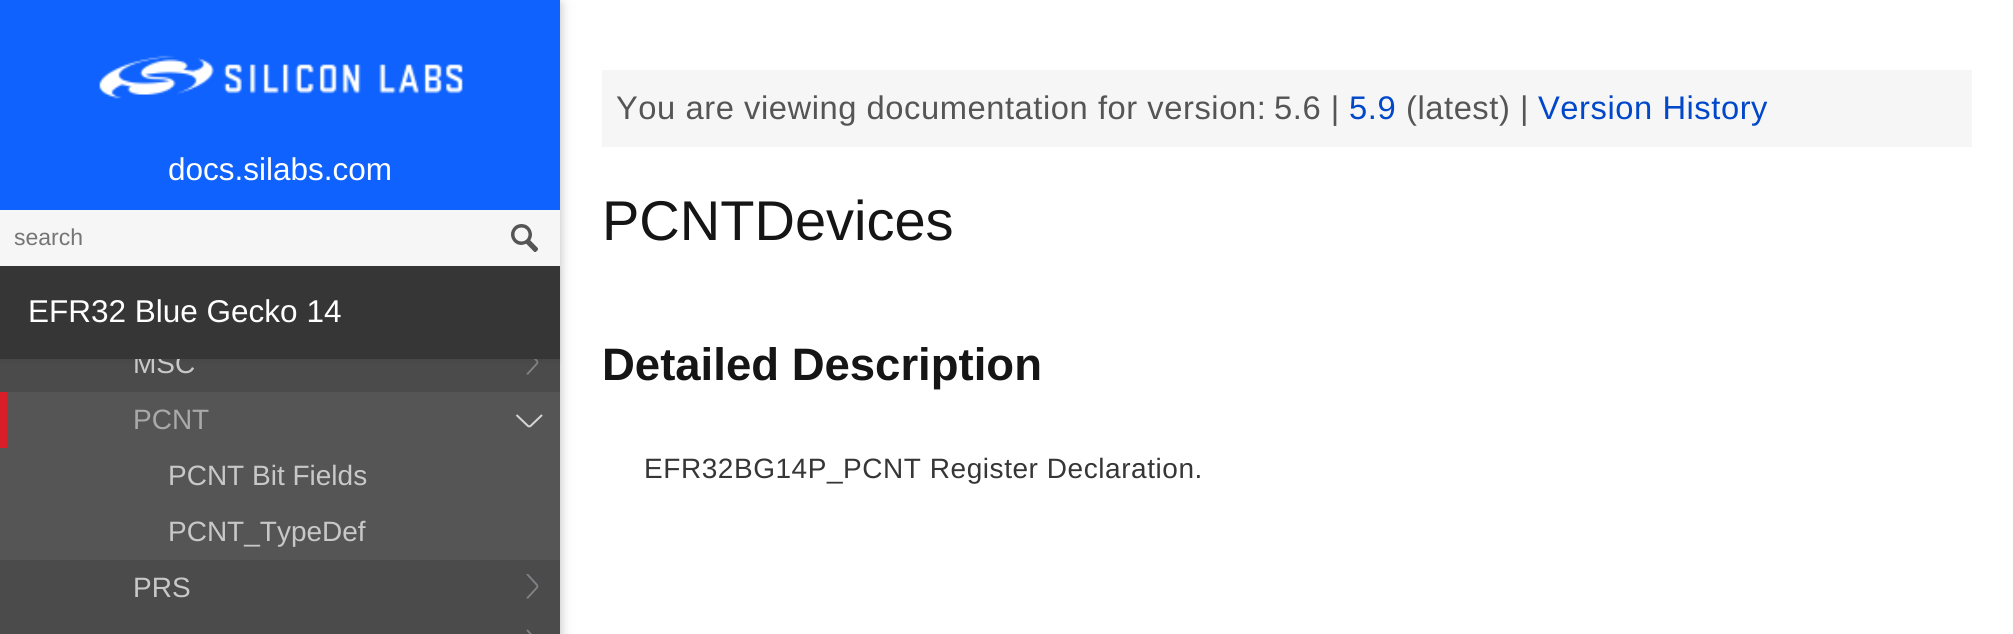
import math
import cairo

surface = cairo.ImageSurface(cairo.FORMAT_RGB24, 2013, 634)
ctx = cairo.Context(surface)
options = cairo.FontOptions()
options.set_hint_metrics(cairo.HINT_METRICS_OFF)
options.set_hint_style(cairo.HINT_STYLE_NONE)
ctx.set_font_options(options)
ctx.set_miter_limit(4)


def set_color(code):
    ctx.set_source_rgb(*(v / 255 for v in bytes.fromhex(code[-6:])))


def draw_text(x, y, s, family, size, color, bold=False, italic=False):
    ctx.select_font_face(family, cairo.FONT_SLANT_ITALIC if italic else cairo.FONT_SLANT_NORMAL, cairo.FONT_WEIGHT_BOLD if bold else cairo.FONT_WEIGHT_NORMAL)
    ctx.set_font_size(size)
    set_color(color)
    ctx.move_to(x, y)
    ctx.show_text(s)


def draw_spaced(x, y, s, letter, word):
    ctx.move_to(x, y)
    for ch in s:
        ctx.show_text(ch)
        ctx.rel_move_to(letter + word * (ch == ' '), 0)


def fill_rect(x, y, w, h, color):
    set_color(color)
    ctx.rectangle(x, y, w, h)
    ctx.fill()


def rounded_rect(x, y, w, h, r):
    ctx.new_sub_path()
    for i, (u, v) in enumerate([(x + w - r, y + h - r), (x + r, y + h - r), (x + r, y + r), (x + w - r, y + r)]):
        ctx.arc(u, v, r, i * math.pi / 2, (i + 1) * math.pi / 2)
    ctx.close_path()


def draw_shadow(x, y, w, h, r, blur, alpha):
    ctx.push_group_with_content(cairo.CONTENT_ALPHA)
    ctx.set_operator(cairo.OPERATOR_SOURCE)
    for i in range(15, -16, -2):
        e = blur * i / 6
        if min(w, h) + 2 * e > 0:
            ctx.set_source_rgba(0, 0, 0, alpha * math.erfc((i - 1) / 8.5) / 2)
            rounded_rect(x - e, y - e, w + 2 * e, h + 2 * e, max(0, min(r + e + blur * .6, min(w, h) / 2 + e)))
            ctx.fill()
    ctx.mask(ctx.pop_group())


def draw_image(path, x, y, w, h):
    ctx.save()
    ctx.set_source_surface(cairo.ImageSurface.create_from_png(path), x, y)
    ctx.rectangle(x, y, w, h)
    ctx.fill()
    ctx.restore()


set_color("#ffffff")
ctx.paint()
set_color("#000000")
draw_shadow(0, 4, 560, 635, 0, 9, 0.12)
draw_shadow(0, 4, 560, 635, 0, 4.5, 0.16)
fill_rect(0, 0, 560, 210, "#0f62fe")
draw_image("assets/img1.png", 99, 55, 364, 44)
draw_text(168, 180, "docs.silabs.com", "Liberation Sans", 31.5, "#ffffff")
fill_rect(0, 210, 560, 56, "#f6f6f6")
draw_text(14, 245, "search", "Liberation Sans", 23, "#757575")
draw_image("assets/img2.png", 511, 224, 27, 28)
fill_rect(0, 359, 560, 275, "#4b4b4b")
ctx.save()
ctx.new_path()
ctx.move_to(525, 374.5)
ctx.line_to(525, 350)
ctx.line_to(540, 350)
ctx.line_to(540, 374.5)
ctx.close_path()
ctx.clip()
ctx.new_path()
ctx.move_to(527, 350)
ctx.line_to(537, 361)
ctx.curve_to(537.5, 361.5, 537.5, 363, 537, 363.5)
ctx.line_to(527, 374.5)
set_color("#808185")
ctx.set_line_width(1.9)
ctx.stroke()
ctx.restore()
set_color("#000000")
draw_shadow(0, 270, 560, 92, 0, 2, 0.06)
draw_text(133, 373, "MSC", "Liberation Sans", 28, "#c8c8c8")
fill_rect(0, 266, 560, 93, "#363636")
draw_text(28, 322, "EFR32 Blue Gecko 14", "Liberation Sans", 31.5, "#ffffff")
fill_rect(7, 392, 553, 56, "#555555")
fill_rect(0, 392, 7, 56, "#d91e2a")
draw_text(133, 429, "PCNT", "Liberation Sans", 28, "#a9a9a9")
fill_rect(0, 448, 560, 112, "#555555")
ctx.new_path()
ctx.move_to(542, 415)
ctx.line_to(530.5, 426)
ctx.curve_to(530, 426.5, 528.5, 426.5, 528, 426)
ctx.line_to(516.5, 415)
set_color("#d6d6d8")
ctx.stroke()
draw_text(168, 485, "PCNT Bit Fields", "Liberation Sans", 28, "#c8c8c8")
draw_text(168, 541, "PCNT_TypeDef", "Liberation Sans", 28, "#c8c8c8")
draw_text(133, 597, "PRS", "Liberation Sans", 28, "#c8c8c8")
ctx.save()
ctx.new_path()
ctx.move_to(525, 598.5)
ctx.line_to(525, 574)
ctx.line_to(540, 574)
ctx.line_to(540, 598.5)
ctx.close_path()
ctx.clip()
ctx.new_path()
ctx.move_to(527, 574)
ctx.line_to(537, 585)
ctx.curve_to(537.5, 585.5, 537.5, 587, 537, 587.5)
ctx.line_to(527, 598.5)
set_color("#808185")
ctx.set_line_width(1.9)
ctx.stroke()
ctx.restore()
ctx.new_path()
ctx.move_to(527, 630)
ctx.line_to(537, 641)
ctx.curve_to(537.5, 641.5, 537.5, 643, 537, 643.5)
ctx.line_to(527, 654.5)
set_color("#808185")
ctx.set_line_width(1.9)
ctx.stroke()
fill_rect(602, 70, 1370, 77, "#f6f6f6")
ctx.set_font_size(32.7)
set_color("#555555")
draw_spaced(616, 119, "You are viewing documentation for version:", 0.55, 0)
draw_spaced(1274, 119, "5.6 |", 0.55, 0)
set_color("#0147ca")
draw_spaced(1349, 119, "5.9", 0.55, 0)
set_color("#555555")
draw_spaced(1406, 119, "(latest) |", 0.55, 0)
set_color("#0147ca")
draw_spaced(1538, 119, "Version History", 0.55, 0)
draw_text(602, 240, "PCNTDevices", "Liberation Sans", 56, "#151515")
draw_text(602, 380, "Detailed Description", "Liberation Sans", 45.5, "#151515", bold=True)
ctx.select_font_face("Liberation Sans")
ctx.set_font_size(28)
set_color("#363636")
draw_spaced(644, 478, "EFR32BG14P_PCNT Register Declaration.", 0.55, 0)
surface.write_to_png("output.png")
